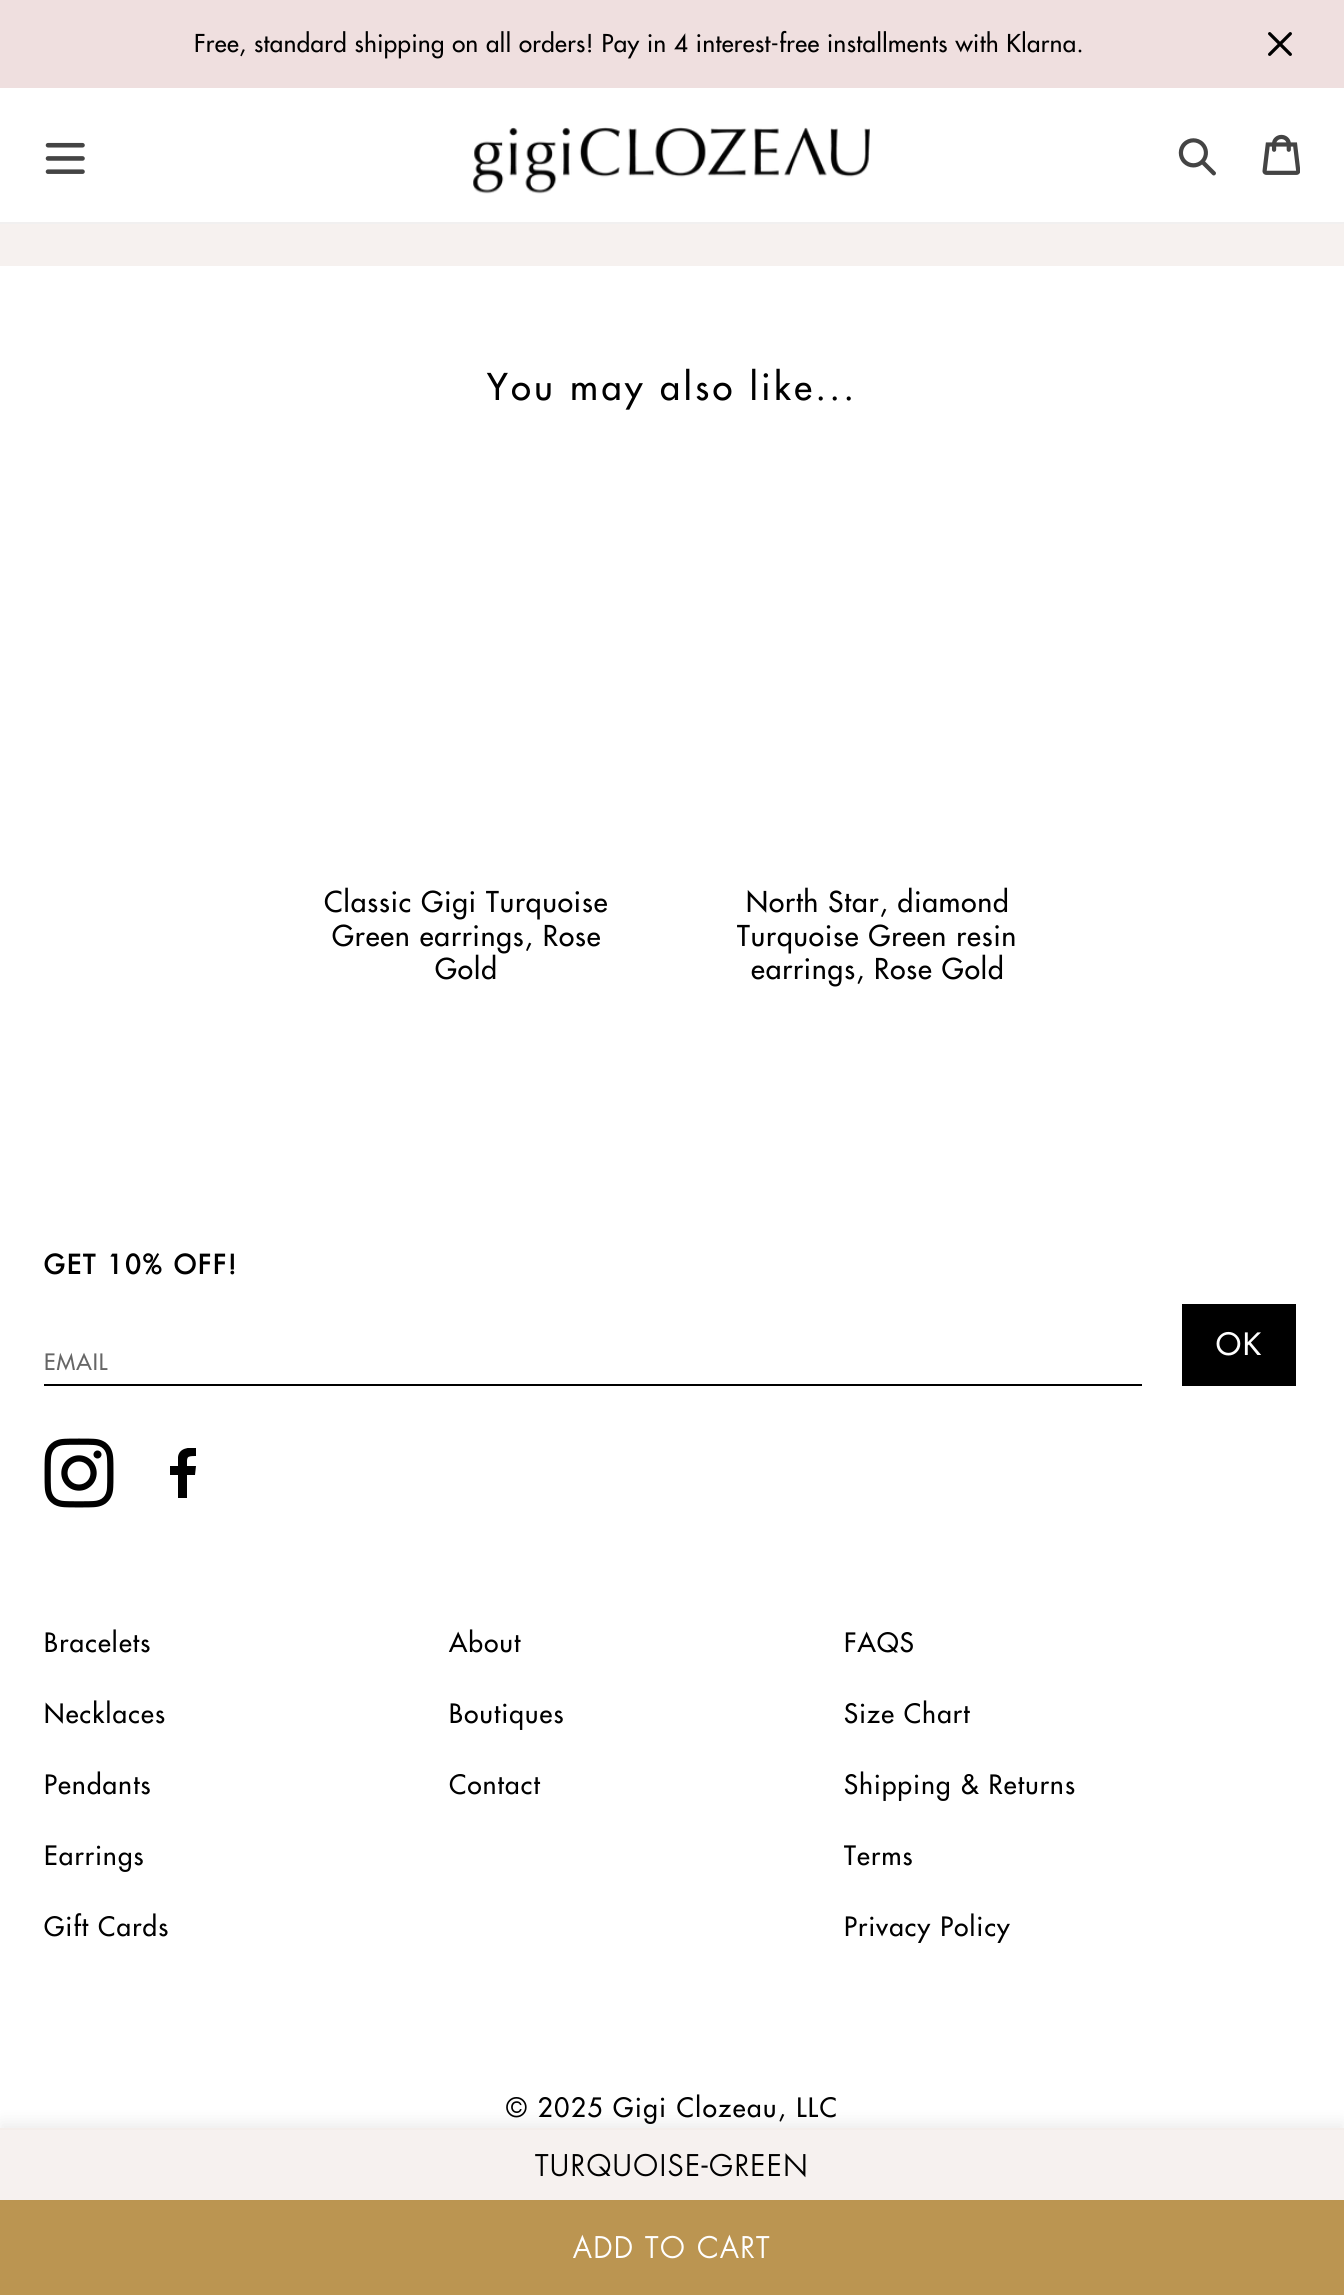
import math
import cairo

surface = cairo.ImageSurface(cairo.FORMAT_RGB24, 1344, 2295)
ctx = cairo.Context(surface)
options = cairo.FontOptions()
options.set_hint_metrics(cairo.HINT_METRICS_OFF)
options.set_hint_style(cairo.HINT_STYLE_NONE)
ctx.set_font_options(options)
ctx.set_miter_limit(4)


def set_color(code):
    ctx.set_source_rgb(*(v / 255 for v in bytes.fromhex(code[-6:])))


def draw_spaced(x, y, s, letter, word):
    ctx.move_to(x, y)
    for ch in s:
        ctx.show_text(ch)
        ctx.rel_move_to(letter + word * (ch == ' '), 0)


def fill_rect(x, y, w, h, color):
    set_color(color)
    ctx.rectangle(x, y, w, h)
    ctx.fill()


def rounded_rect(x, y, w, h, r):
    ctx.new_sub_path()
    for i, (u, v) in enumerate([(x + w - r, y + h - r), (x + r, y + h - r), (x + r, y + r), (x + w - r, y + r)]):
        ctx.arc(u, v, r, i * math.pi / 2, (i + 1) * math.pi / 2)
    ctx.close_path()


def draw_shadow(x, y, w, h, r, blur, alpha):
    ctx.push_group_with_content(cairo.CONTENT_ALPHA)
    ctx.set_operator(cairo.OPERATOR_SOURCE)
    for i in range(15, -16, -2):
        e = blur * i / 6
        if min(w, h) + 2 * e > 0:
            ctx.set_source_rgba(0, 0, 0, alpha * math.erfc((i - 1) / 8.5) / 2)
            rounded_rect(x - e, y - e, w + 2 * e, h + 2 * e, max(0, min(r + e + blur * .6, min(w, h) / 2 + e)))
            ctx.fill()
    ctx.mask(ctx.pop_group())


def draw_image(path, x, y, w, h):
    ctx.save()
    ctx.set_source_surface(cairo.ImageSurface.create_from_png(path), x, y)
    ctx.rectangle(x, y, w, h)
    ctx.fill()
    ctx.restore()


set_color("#ffffff")
ctx.paint()
fill_rect(0, 0, 1344, 88, "#efdfdf")
ctx.select_font_face("Futura")
ctx.set_font_size(24)
set_color("#000000")
draw_spaced(194, 52, "Free, standard shipping on all orders! Pay in 4 interest-free installments with Klarna.", 0.48, 0)
draw_image("assets/img1.png", 1268, 32, 24, 24)
fill_rect(0, 222, 1344, 2, "#f1f0f0")
draw_image("assets/img2.png", 45, 142, 40, 32)
draw_image("assets/img3.png", 473, 127, 397, 67)
draw_image("assets/img4.png", 1178, 138, 38, 38)
draw_image("assets/img5.png", 1262, 134, 38, 41)
fill_rect(0, 224, 1344, 42, "#f6f1ef")
ctx.set_font_size(36)
set_color("#000000")
draw_spaced(487, 400, "You may also like...", 3.6, 0)
ctx.set_font_size(28)
draw_spaced(324, 912, "Classic Gigi Turquoise", 1, 0)
draw_spaced(332, 946, "Green earrings, Rose", 1, 0)
draw_spaced(435, 979, "Gold", 1, 0)
draw_spaced(746, 912, "North Star, diamond", 1, 0)
draw_spaced(737, 946, "Turquoise Green resin", 1, 0)
draw_spaced(751, 979, "earrings, Rose Gold", 1, 0)
set_color("#000000")
draw_shadow(0, 2122, 1344, 168, 0, 8, 0.07)
fill_rect(0, 2200, 1344, 95, "#bb9551")
fill_rect(0, 2130, 1344, 70, "#f6f1ef")
fill_rect(0, 2128, 1344, 2, "#f4eeeb")
ctx.select_font_face("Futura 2", cairo.FONT_SLANT_NORMAL, cairo.FONT_WEIGHT_BOLD)
set_color("#000000")
draw_spaced(535, 2176, "TURQUOISE-GREEN", 2.25, 0)
set_color("#ffffff")
draw_spaced(573, 2258, "ADD TO CART", 2.25, 0)
ctx.select_font_face("Futura", cairo.FONT_SLANT_NORMAL, cairo.FONT_WEIGHT_BOLD)
ctx.set_font_size(26)
set_color("#000000")
draw_spaced(44, 1274, "GET 10% OFF!", 2.6, 0)
fill_rect(1182, 1304, 114, 82, "#000000")
ctx.select_font_face("Futura")
ctx.set_font_size(30)
set_color("#ffffff")
draw_spaced(1216, 1355, "OK", 2, 0)
fill_rect(44, 1384, 1098, 2, "#000000")
ctx.set_font_size(22)
set_color("#666666")
draw_spaced(44, 1370, "EMAIL", 1, 0)
draw_image("assets/img6.png", 44, 1438, 70, 70)
ctx.save()
ctx.rectangle(158, 1448, 50, 50)
ctx.clip()
set_color("#000000")
ctx.new_path()
ctx.move_to(196, 1448)
ctx.line_to(196, 1456)
ctx.curve_to(186, 1456, 187, 1457, 187, 1466)
ctx.line_to(196, 1466)
ctx.line_to(195, 1475)
ctx.line_to(187, 1475)
ctx.line_to(187, 1498)
ctx.line_to(178, 1498)
ctx.line_to(178, 1475)
ctx.line_to(170, 1475)
ctx.line_to(170, 1466)
ctx.line_to(178, 1466)
ctx.line_to(178, 1457)
ctx.curve_to(179, 1448, 189, 1447, 196, 1448)
ctx.close_path()
ctx.fill()
ctx.restore()
ctx.set_font_size(26)
set_color("#000000")
draw_spaced(44, 1652, "Bracelets", 1.25, 0)
draw_spaced(44, 1723, "Necklaces", 1.25, 0)
draw_spaced(44, 1794, "Pendants", 1.25, 0)
draw_spaced(44, 1865, "Earrings", 1.25, 0)
draw_spaced(44, 1936, "Gift Cards", 1.25, 0)
draw_spaced(449, 1652, "About", 1.25, 0)
draw_spaced(449, 1723, "Boutiques", 1.25, 0)
draw_spaced(449, 1794, "Contact", 1.25, 0)
draw_spaced(844, 1652, "FAQS", 1.25, 0)
draw_spaced(844, 1723, "Size Chart", 1.25, 0)
draw_spaced(844, 1794, "Shipping & Returns", 1.25, 0)
draw_spaced(844, 1865, "Terms", 1.25, 0)
draw_spaced(844, 1936, "Privacy Policy", 1.25, 0)
draw_spaced(506, 2117, "© 2025 Gigi Clozeau, LLC", 1.6, 0)
surface.write_to_png("output.png")
